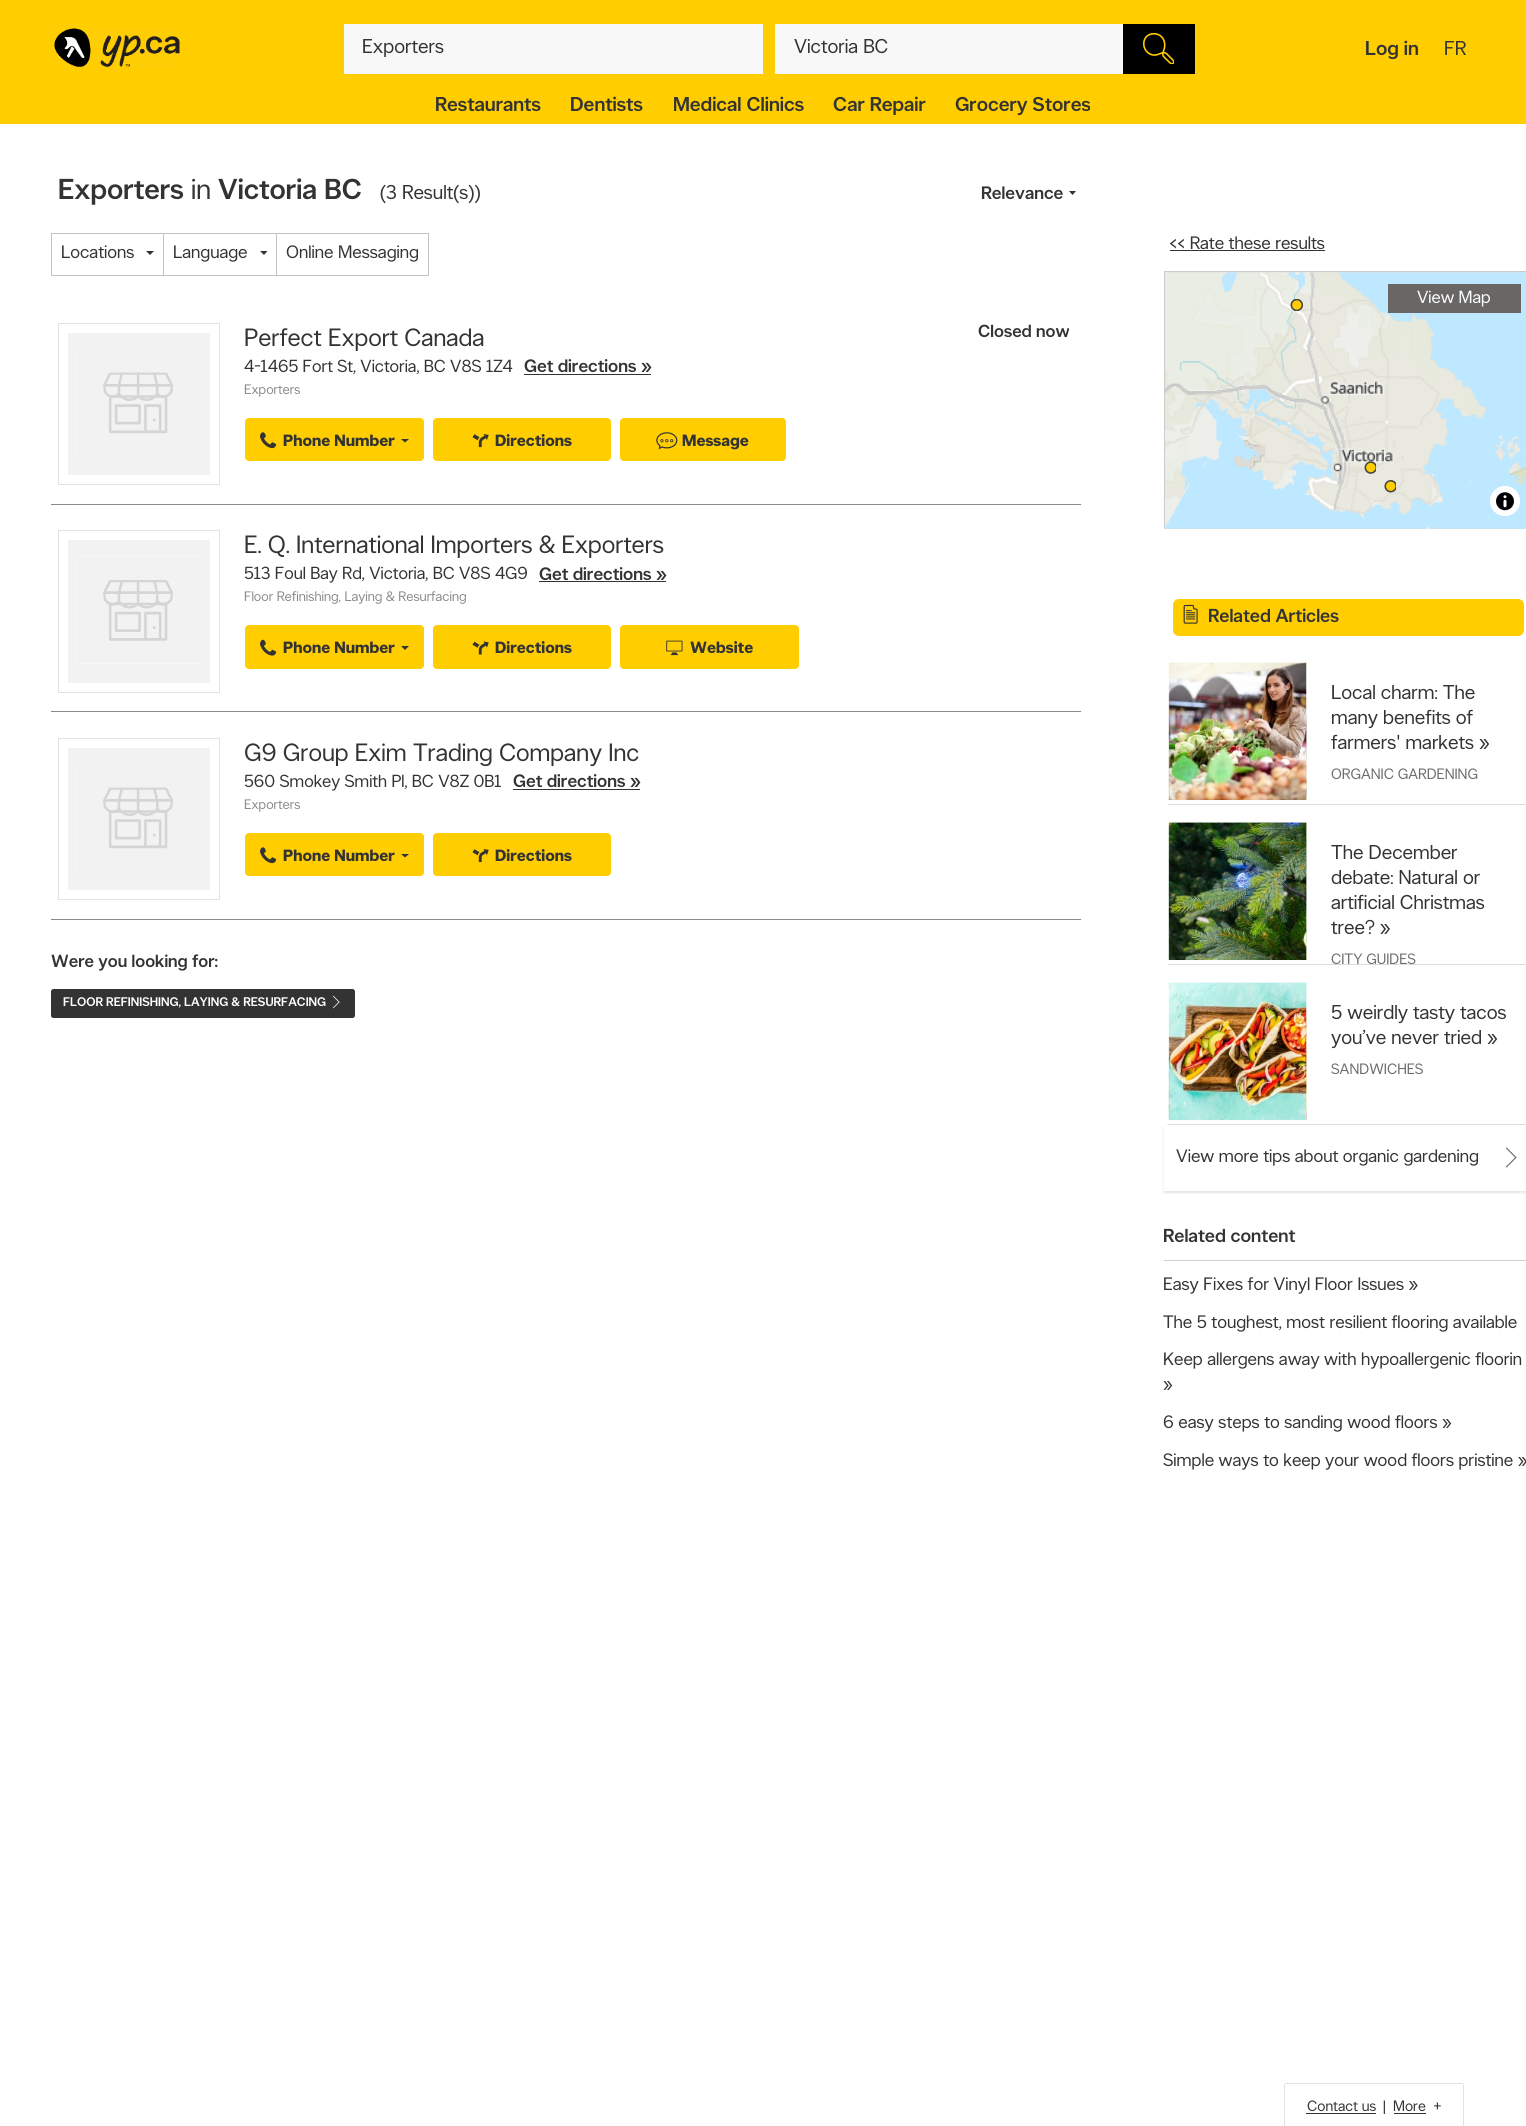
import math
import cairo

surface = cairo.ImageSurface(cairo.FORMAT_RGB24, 1526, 2126)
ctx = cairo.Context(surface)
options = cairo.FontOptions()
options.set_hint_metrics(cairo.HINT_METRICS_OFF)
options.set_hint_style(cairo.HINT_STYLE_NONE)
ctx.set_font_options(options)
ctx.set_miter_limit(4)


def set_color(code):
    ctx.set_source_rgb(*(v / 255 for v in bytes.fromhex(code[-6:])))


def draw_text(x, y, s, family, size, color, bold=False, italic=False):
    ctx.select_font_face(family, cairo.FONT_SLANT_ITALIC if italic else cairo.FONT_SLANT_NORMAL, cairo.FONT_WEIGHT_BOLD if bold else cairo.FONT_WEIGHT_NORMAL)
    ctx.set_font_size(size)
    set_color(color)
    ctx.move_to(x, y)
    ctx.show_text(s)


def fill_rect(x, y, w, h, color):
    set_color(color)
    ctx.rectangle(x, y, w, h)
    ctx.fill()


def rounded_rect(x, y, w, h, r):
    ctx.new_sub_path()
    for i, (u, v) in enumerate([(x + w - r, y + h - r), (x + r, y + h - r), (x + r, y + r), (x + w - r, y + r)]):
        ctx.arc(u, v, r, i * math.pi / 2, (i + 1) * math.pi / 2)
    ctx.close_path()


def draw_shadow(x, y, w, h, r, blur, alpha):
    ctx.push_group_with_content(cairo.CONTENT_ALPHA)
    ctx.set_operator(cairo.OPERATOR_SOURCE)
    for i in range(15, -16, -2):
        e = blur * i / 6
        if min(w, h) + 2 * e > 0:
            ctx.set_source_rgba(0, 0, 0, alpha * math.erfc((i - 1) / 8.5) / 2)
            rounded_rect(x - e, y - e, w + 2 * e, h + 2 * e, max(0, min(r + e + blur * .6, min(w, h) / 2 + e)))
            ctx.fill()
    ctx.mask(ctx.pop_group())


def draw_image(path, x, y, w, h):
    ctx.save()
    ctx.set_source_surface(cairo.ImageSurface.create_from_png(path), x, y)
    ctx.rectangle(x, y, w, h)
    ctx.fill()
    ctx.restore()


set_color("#ffffff")
ctx.paint()
fill_rect(0, 0, 1526, 124, "#ffcd00")
draw_image("assets/img1.png", 54, 28, 126, 40)
fill_rect(344, 24, 419, 50, "#f8f8f8")
draw_text(362, 53, "Exporters", "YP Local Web", 20, "#333333")
fill_rect(775, 24, 348, 50, "#f8f8f8")
draw_text(794, 53, "Victoria BC", "YP Local Web", 20, "#333333")
fill_rect(1123, 24, 72, 50, "#000000")
draw_image("assets/img2.png", 1143, 33, 31, 31)
draw_text(1365, 55, "Log in", "YP Local Web Medium", 20, "#333333")
draw_text(1444, 55, "FR", "YP Local Web", 20, "#333333")
draw_text(435, 111, "Restaurants", "YP Local Web Medium", 20, "#333333")
draw_text(570, 111, "Dentists", "YP Local Web Medium", 20, "#333333")
draw_text(673, 111, "Medical Clinics", "YP Local Web Medium", 20, "#333333")
draw_text(833, 111, "Car Repair", "YP Local Web Medium", 20, "#333333")
draw_text(955, 111, "Grocery Stores", "YP Local Web Medium", 20, "#333333")
draw_text(58, 199, "Exporters", "YP Local Web Medium", 28.75, "#333333")
draw_text(191, 199, "in", "YP Local Web", 28.75, "#333333")
draw_text(218, 199, "Victoria BC", "YP Local Web Medium", 28.75, "#333333")
draw_text(380, 199, "(3 Result(s))", "YP Local Web", 20, "#333333")
draw_text(981, 199, "Relevance", "YP Local Web Medium", 18, "#333333")
ctx.new_path()
ctx.move_to(1069, 191)
ctx.line_to(1076, 191)
ctx.line_to(1072.5, 195)
ctx.close_path()
ctx.fill()
ctx.rectangle(51.5, 233.5, 112, 42)
set_color("#c3c3c3")
ctx.set_line_width(1)
ctx.stroke()
draw_text(61, 258, "Locations", "YP Local Web", 18, "#333333")
ctx.new_path()
ctx.move_to(146, 251)
ctx.line_to(154, 251)
ctx.line_to(150, 255)
ctx.close_path()
ctx.fill()
ctx.rectangle(163.5, 233.5, 114, 42)
set_color("#c3c3c3")
ctx.stroke()
draw_text(173, 258, "Language", "YP Local Web", 18, "#333333")
ctx.new_path()
ctx.move_to(260, 251)
ctx.line_to(267.5, 251)
ctx.line_to(264, 255)
ctx.close_path()
ctx.fill()
fill_rect(277, 234, 1, 41, "#ffffff")
ctx.rectangle(276.5, 233.5, 152, 42)
set_color("#c3c3c3")
ctx.stroke()
draw_text(286, 258, "Online Messaging", "YP Local Web", 18, "#333333")
fill_rect(51, 504, 1030, 1, "#8a8a8a")
ctx.rectangle(58.5, 323.5, 161, 161)
set_color("#e2e2e2")
ctx.stroke()
fill_rect(68, 333, 142, 142, "#f2f2f2")
draw_image("assets/img3.png", 76, 349, 97, 107)
draw_text(244, 346, "Perfect Export Canada", "YP Local Web", 25, "#333333")
draw_text(244, 372, "4-1465 Fort St, Victoria, BC V8S 1Z4", "YP Local Web", 17.5, "#333333")
draw_text(524, 372, "Get directions »", "YP Local Web Medium", 18, "#333333")
fill_rect(524, 374, 127, 1, "#333333")
draw_text(244, 394, "Exporters", "YP Local Web", 13.75, "#8a8a8a")
draw_text(978, 337, "Closed now", "YP Local Web Medium", 17.5, "#333333")
set_color("#ffcd00")
rounded_rect(245, 418, 179, 43, 4)
ctx.fill()
draw_image("assets/img4.png", 260, 432, 17, 17)
draw_text(283, 446, "Phone Number", "YP Local Web", 16.25, "#333333", bold=True)
ctx.new_path()
ctx.move_to(401, 439)
ctx.line_to(409, 439)
ctx.line_to(405, 442.5)
ctx.close_path()
ctx.fill()
set_color("#ffcd00")
rounded_rect(433, 418, 178, 43, 4)
ctx.fill()
draw_image("assets/img5.png", 472, 434, 17, 14)
draw_text(495, 446, "Directions", "YP Local Web", 16.25, "#333333", bold=True)
set_color("#ffcd00")
rounded_rect(620, 418, 166, 43, 4)
ctx.fill()
draw_image("assets/img6.png", 656, 432, 22, 18)
draw_text(682, 446, "Message", "YP Local Web", 16.25, "#333333", bold=True)
fill_rect(51, 711, 1030, 1, "#8a8a8a")
ctx.rectangle(58.5, 530.5, 161, 162)
set_color("#e2e2e2")
ctx.stroke()
fill_rect(68, 540, 142, 143, "#f2f2f2")
draw_image("assets/img7.png", 76, 556, 124, 108)
draw_text(244, 553, "E. Q. International Importers & Exporters", "YP Local Web", 25, "#333333")
draw_text(244, 579, "513 Foul Bay Rd, Victoria, BC V8S 4G9", "YP Local Web", 17.5, "#333333")
draw_text(539, 580, "Get directions »", "YP Local Web Medium", 18, "#333333")
fill_rect(539, 581, 127, 1, "#333333")
draw_text(244, 601, "Floor Refinishing, Laying & Resurfacing", "YP Local Web", 13.75, "#8a8a8a")
set_color("#ffcd00")
rounded_rect(245, 625, 179, 44, 4)
ctx.fill()
draw_image("assets/img8.png", 260, 639, 17, 17)
draw_text(283, 653, "Phone Number", "YP Local Web", 16.25, "#333333", bold=True)
ctx.new_path()
ctx.move_to(401, 646)
ctx.line_to(409, 646)
ctx.line_to(405, 650)
ctx.close_path()
ctx.fill()
set_color("#ffcd00")
rounded_rect(433, 625, 178, 44, 4)
ctx.fill()
draw_image("assets/img9.png", 472, 641, 17, 14)
draw_text(495, 653, "Directions", "YP Local Web", 16.25, "#333333", bold=True)
set_color("#ffcd00")
rounded_rect(620, 625, 179, 44, 4)
ctx.fill()
draw_image("assets/img10.png", 666, 640, 17, 16)
draw_text(690, 653, "Website", "YP Local Web", 16.25, "#333333", bold=True)
fill_rect(51, 919, 1030, 1, "#8a8a8a")
ctx.rectangle(58.5, 738.5, 161, 161)
set_color("#e2e2e2")
ctx.stroke()
fill_rect(68, 748, 142, 142, "#f2f2f2")
draw_image("assets/img3.png", 76, 764, 97, 107)
draw_text(244, 761, "G9 Group Exim Trading Company Inc", "YP Local Web", 25, "#333333")
draw_text(244, 787, "560 Smokey Smith Pl, BC V8Z 0B1", "YP Local Web", 17.5, "#333333")
draw_text(513, 787, "Get directions »", "YP Local Web Medium", 18, "#333333")
fill_rect(513, 789, 127, 1, "#333333")
draw_text(244, 809, "Exporters", "YP Local Web", 13.75, "#8a8a8a")
set_color("#ffcd00")
rounded_rect(245, 833, 179, 43, 4)
ctx.fill()
draw_image("assets/img4.png", 260, 847, 17, 17)
draw_text(283, 861, "Phone Number", "YP Local Web", 16.25, "#333333", bold=True)
ctx.new_path()
ctx.move_to(401, 854)
ctx.line_to(409, 854)
ctx.line_to(405, 857.5)
ctx.close_path()
ctx.fill()
set_color("#ffcd00")
rounded_rect(433, 833, 178, 43, 4)
ctx.fill()
draw_image("assets/img5.png", 472, 849, 17, 14)
draw_text(495, 861, "Directions", "YP Local Web", 16.25, "#333333", bold=True)
draw_text(51, 967, "Were you looking for:", "YP Local Web Medium", 17.5, "#333333")
rounded_rect(51, 989, 304, 29, 2.5)
ctx.fill()
draw_text(63, 1006, "FLOOR REFINISHING, LAYING & RESURFACING", "YP Local Web Medium", 12.5, "#ffffff")
draw_image("assets/img11.png", 332, 995, 8, 14)
draw_text(1169, 249, "<< Rate these results", "YP Local Web", 18, "#333333")
fill_rect(1170, 250, 155, 1, "#333333")
fill_rect(1165, 272, 361, 257, "#e1e1e1")
fill_rect(1164, 271, 362, 1, "#cbcbcb")
fill_rect(1164, 271, 1, 258, "#cbcbcb")
draw_image("assets/img12.png", 1165, 272, 361, 257)
draw_image("assets/img13.png", 1290, 299, 13, 12)
draw_image("assets/img14.png", 1364, 461, 12, 13)
draw_image("assets/img15.png", 1384, 480, 12, 13)
set_color("#ffffff")
ctx.arc(1505, 501, 15, 0, 2 * math.pi)
ctx.fill()
ctx.set_source_rgba(1, 1, 1, 0.5)
ctx.arc(1505, 501, 15, 0, 2 * math.pi)
ctx.fill()
draw_image("assets/img16.png", 1496, 492, 18, 19)
fill_rect(1388, 284, 133, 29, "#696666")
draw_text(1417, 303, "View Map", "YP Local Web", 17.5, "#ffffff")
set_color("#ffcd00")
rounded_rect(1173, 599, 351, 37, 6)
ctx.fill()
draw_image("assets/img17.png", 1183, 604, 15, 20)
draw_text(1208, 622, "Related Articles", "YP Local Web Medium", 18.75, "#333333")
set_color("#dddddd")
ctx.new_path()
ctx.move_to(1166, 805)
ctx.line_to(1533, 805)
ctx.line_to(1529, 804)
ctx.line_to(1169, 804)
ctx.line_to(1165, 805)
ctx.close_path()
ctx.fill()
set_color("#ffffff")
ctx.new_path()
ctx.move_to(1165, 659)
ctx.line_to(1164, 660)
ctx.line_to(1164, 803)
ctx.line_to(1165, 805)
ctx.line_to(1169, 804)
ctx.line_to(1169, 663)
ctx.close_path()
ctx.fill()
draw_image("assets/img18.png", 1168, 662, 139, 138)
draw_image("assets/img19.png", 1168, 662, 139, 138)
draw_text(1331, 699, "Local charm: The", "YP Local Web", 20, "#333333")
draw_text(1331, 724, "many benefits of", "YP Local Web", 20, "#333333")
draw_text(1331, 749, "farmers' markets »", "YP Local Web", 20, "#333333")
draw_text(1331, 779, "ORGANIC GARDENING", "YP Local Web", 15, "#6e6c6c")
set_color("#dddddd")
ctx.new_path()
ctx.move_to(1166, 965)
ctx.line_to(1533, 965)
ctx.line_to(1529, 964)
ctx.line_to(1169, 964)
ctx.line_to(1165, 965)
ctx.close_path()
ctx.fill()
set_color("#ffffff")
ctx.new_path()
ctx.move_to(1165, 819)
ctx.line_to(1164, 820)
ctx.line_to(1164, 963)
ctx.line_to(1165, 965)
ctx.line_to(1169, 964)
ctx.line_to(1169, 823)
ctx.close_path()
ctx.fill()
draw_image("assets/img20.png", 1168, 822, 139, 138)
draw_image("assets/img21.png", 1168, 822, 139, 138)
draw_text(1331, 859, "The December", "YP Local Web", 20, "#333333")
draw_text(1331, 884, "debate: Natural or", "YP Local Web", 20, "#333333")
draw_text(1331, 909, "artificial Christmas", "YP Local Web", 20, "#333333")
draw_text(1331, 934, "tree? »", "YP Local Web", 20, "#333333")
ctx.save()
ctx.new_path()
ctx.move_to(1169, 822.5)
ctx.line_to(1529, 822.5)
ctx.line_to(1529, 964)
ctx.line_to(1169, 964)
ctx.line_to(1169, 962.5)
ctx.close_path()
ctx.clip()
draw_text(1331, 964, "CITY GUIDES", "YP Local Web", 15, "#6e6c6c")
ctx.restore()
ctx.save()
ctx.set_fill_rule(cairo.FILL_RULE_EVEN_ODD)
ctx.new_path()
ctx.move_to(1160, 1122)
ctx.line_to(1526, 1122)
ctx.line_to(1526, 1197)
ctx.line_to(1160, 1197)
ctx.close_path()
ctx.move_to(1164, 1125)
ctx.line_to(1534, 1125)
ctx.line_to(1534, 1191)
ctx.line_to(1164, 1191)
ctx.close_path()
ctx.clip()
set_color("#000000")
draw_shadow(1164, 1126, 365, 67, 0, 1, 0.1)
ctx.restore()
set_color("#dddddd")
ctx.new_path()
ctx.move_to(1166, 1125)
ctx.line_to(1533, 1125)
ctx.line_to(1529, 1124)
ctx.line_to(1169, 1124)
ctx.line_to(1165, 1125)
ctx.close_path()
ctx.fill()
set_color("#ffffff")
ctx.new_path()
ctx.move_to(1165, 979)
ctx.line_to(1164, 980)
ctx.line_to(1164, 1123)
ctx.line_to(1165, 1125)
ctx.line_to(1169, 1124)
ctx.line_to(1169, 983)
ctx.close_path()
ctx.fill()
draw_image("assets/img22.png", 1168, 982, 139, 138)
draw_image("assets/img23.png", 1168, 982, 139, 138)
draw_text(1331, 1019, "5 weirdly tasty tacos", "YP Local Web", 20, "#333333")
draw_text(1331, 1044, "you’ve never tried »", "YP Local Web", 20, "#333333")
draw_text(1331, 1074, "SANDWICHES", "YP Local Web", 15, "#6e6c6c")
draw_text(1176, 1162, "View more tips about organic gardening", "YP Local Web", 18, "#333333")
draw_image("assets/img24.png", 1505, 1147, 12, 21)
fill_rect(1164, 1260, 362, 1, "#d0d0d0")
draw_text(1163, 1242, "Related content", "YP Local Web Medium", 18.75, "#333333")
draw_text(1163, 1290, "Easy Fixes for Vinyl Floor Issues »", "YP Local Web", 18, "#333333")
draw_text(1163, 1328, "The 5 toughest, most resilient flooring available", "YP Local Web", 18, "#333333")
draw_text(1163, 1365, "Keep allergens away with hypoallergenic floorin", "YP Local Web", 18, "#333333")
draw_text(1163, 1390, "»", "YP Local Web", 18, "#333333")
draw_text(1163, 1428, "6 easy steps to sanding wood floors »", "YP Local Web", 18, "#333333")
draw_text(1163, 1466, "Simple ways to keep your wood floors pristine »", "YP Local Web", 18, "#333333")
fill_rect(1285, 2083, 178, 1, "#e2e2e2")
fill_rect(1463, 2084, 1, 42, "#e2e2e2")
fill_rect(1284, 2084, 1, 42, "#e2e2e2")
draw_text(1307, 2111, "Contact us", "YP Local Web", 15, "#333333")
fill_rect(1306, 2113, 70, 1, "#333333")
draw_text(1383, 2111, "|", "YP Local Web", 15, "#333333")
draw_text(1393, 2111, "More", "YP Local Web", 15, "#333333")
fill_rect(1394, 2113, 32, 1, "#333333")
draw_text(1433, 2111, "+", "YP Local Web", 15, "#333333")
surface.write_to_png("output.png")
